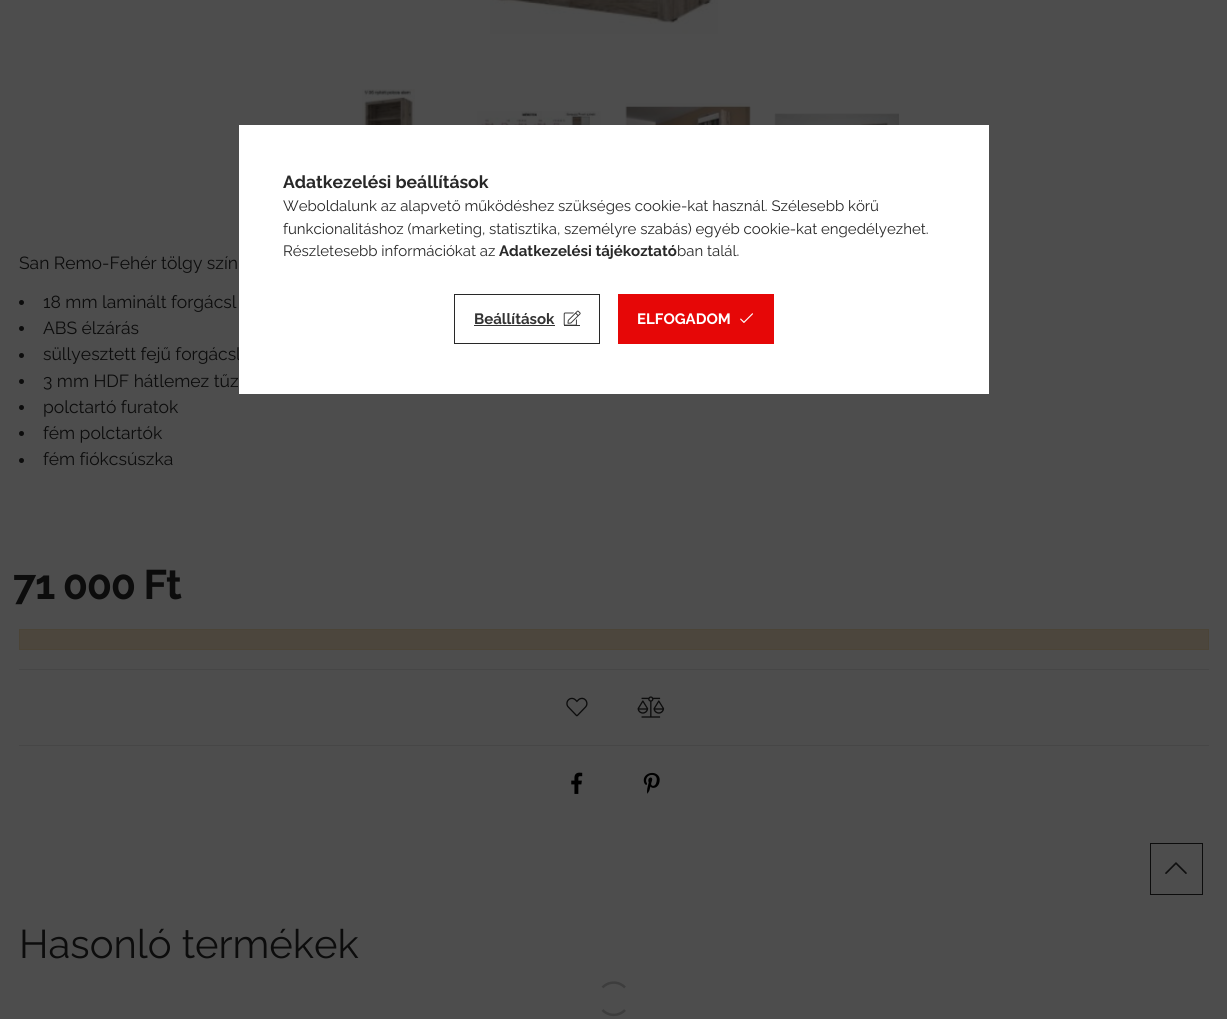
import math
import cairo

surface = cairo.ImageSurface(cairo.FORMAT_RGB24, 1227, 1019)
ctx = cairo.Context(surface)
options = cairo.FontOptions()
options.set_hint_metrics(cairo.HINT_METRICS_OFF)
options.set_hint_style(cairo.HINT_STYLE_NONE)
ctx.set_font_options(options)
ctx.set_miter_limit(4)


def set_color(code):
    ctx.set_source_rgb(*(v / 255 for v in bytes.fromhex(code[-6:])))


def draw_text(x, y, s, family, size, color, bold=False, italic=False):
    ctx.select_font_face(family, cairo.FONT_SLANT_ITALIC if italic else cairo.FONT_SLANT_NORMAL, cairo.FONT_WEIGHT_BOLD if bold else cairo.FONT_WEIGHT_NORMAL)
    ctx.set_font_size(size)
    set_color(color)
    ctx.move_to(x, y)
    ctx.show_text(s)


def draw_spaced(x, y, s, letter, word):
    ctx.move_to(x, y)
    for ch in s:
        ctx.show_text(ch)
        ctx.rel_move_to(letter + word * (ch == ' '), 0)


def fill_rect(x, y, w, h, color):
    set_color(color)
    ctx.rectangle(x, y, w, h)
    ctx.fill()


def draw_image(path, x, y, w, h):
    ctx.save()
    ctx.set_source_surface(cairo.ImageSurface.create_from_png(path), x, y)
    ctx.rectangle(x, y, w, h)
    ctx.fill()
    ctx.restore()


set_color("#4d4d4d")
ctx.paint()
draw_image("assets/img1.png", 490, 0, 228, 34)
draw_image("assets/img2.png", 362, 89, 53, 36)
draw_image("assets/img3.png", 477, 111, 125, 14)
draw_image("assets/img4.png", 625, 103, 126, 22)
draw_image("assets/img5.png", 774, 113, 125, 12)
draw_text(19, 269, "San Remo-Fehér tölgy szín", "Raleway", 17.5, "#0c0c0c")
ctx.new_path()
ctx.arc(21.5, 302.5, 2.5, 0, 2 * math.pi)
ctx.fill()
draw_text(43, 308, "18 mm laminált forgácsl", "Raleway", 17.5, "#0c0c0c")
ctx.new_path()
ctx.arc(21.5, 328.5, 2.5, 0, 2 * math.pi)
ctx.fill()
draw_text(43, 334, "ABS élzárás", "Raleway", 17.5, "#0c0c0c")
ctx.new_path()
ctx.arc(21.5, 355.5, 2.5, 0, 2 * math.pi)
ctx.fill()
draw_text(43, 360, "süllyesztett fejű forgácsl", "Raleway", 17.5, "#0c0c0c")
ctx.new_path()
ctx.arc(21.5, 381.5, 2.5, 0, 2 * math.pi)
ctx.fill()
draw_text(43, 387, "3 mm HDF hátlemez tűz", "Raleway", 17.5, "#0c0c0c")
ctx.new_path()
ctx.arc(21.5, 407.5, 2.5, 0, 2 * math.pi)
ctx.fill()
draw_text(43, 413, "polctartó furatok", "Raleway", 17.5, "#0c0c0c")
ctx.new_path()
ctx.arc(21.5, 433.5, 2.5, 0, 2 * math.pi)
ctx.fill()
draw_text(43, 439, "fém polctartók", "Raleway", 17.5, "#0c0c0c")
ctx.new_path()
ctx.arc(21.5, 460.5, 2.5, 0, 2 * math.pi)
ctx.fill()
draw_text(43, 465, "fém fiókcsúszka", "Raleway", 17.5, "#0c0c0c")
ctx.select_font_face("Raleway", cairo.FONT_SLANT_NORMAL, cairo.FONT_WEIGHT_BOLD)
ctx.set_font_size(41.25)
draw_spaced(13, 599, "71 000 Ft", -1.25, 0)
set_color("#4c463d")
ctx.rectangle(19.5, 629.5, 1189, 20)
ctx.fill_preserve()
set_color("#4b4437")
ctx.set_line_width(1)
ctx.stroke()
fill_rect(19, 669, 1190, 1, "#464646")
draw_image("assets/img6.png", 566, 697, 22, 20)
draw_image("assets/img7.png", 637, 696, 28, 22)
fill_rect(19, 745, 1190, 1, "#464646")
draw_image("assets/img8.png", 571, 772, 12, 22)
draw_image("assets/img9.png", 643, 772, 17, 22)
draw_text(19, 958, "Hasonló termékek", "Raleway", 40, "#0c0c0c")
ctx.new_path()
ctx.move_to(602.5, 987.5)
ctx.curve_to(608.5, 981, 619, 981, 625, 987.5)
ctx.move_to(625, 1010)
ctx.curve_to(619, 1016.5, 608.5, 1016.5, 602.5, 1010)
set_color("#3d3d3d")
ctx.set_line_width(2.5)
ctx.stroke()
fill_rect(239, 125, 750, 269, "#ffffff")
draw_text(283, 188, "Adatkezelési beállítások", "Raleway", 17.5, "#282828", bold=True)
draw_text(283, 211, "Weboldalunk az alapvető működéshez szükséges cookie-kat használ. Szélesebb körű", "Raleway", 15, "#282828")
draw_text(283, 234, "funkcionalitáshoz (marketing, statisztika, személyre szabás) egyéb cookie-kat engedélyezhet.", "Raleway", 15, "#282828")
draw_text(283, 256, "Részletesebb információkat az", "Raleway", 15, "#282828")
draw_text(499, 256, "Adatkezelési tájékoztató", "Raleway", 15, "#282828", bold=True)
draw_text(677, 256, "ban talál.", "Raleway", 15, "#282828")
ctx.rectangle(454.5, 294.5, 145, 49)
ctx.set_line_width(1)
ctx.stroke()
draw_text(474, 324, "Beállítások", "Raleway", 15, "#333333", bold=True)
fill_rect(474, 325, 81, 1, "#333333")
draw_image("assets/img10.png", 563, 310, 18, 15)
fill_rect(564, 325, 16, 1, "#333333")
fill_rect(618, 294, 156, 50, "#e60707")
draw_text(637, 324, "ELFOGADOM", "Raleway", 15, "#ffffff", bold=True)
draw_image("assets/img11.png", 740, 313, 13, 10)
ctx.rectangle(1150.5, 843.5, 52, 51)
set_color("#0c0c0c")
ctx.stroke()
draw_image("assets/img12.png", 1165, 862, 22, 12)
surface.write_to_png("output.png")
